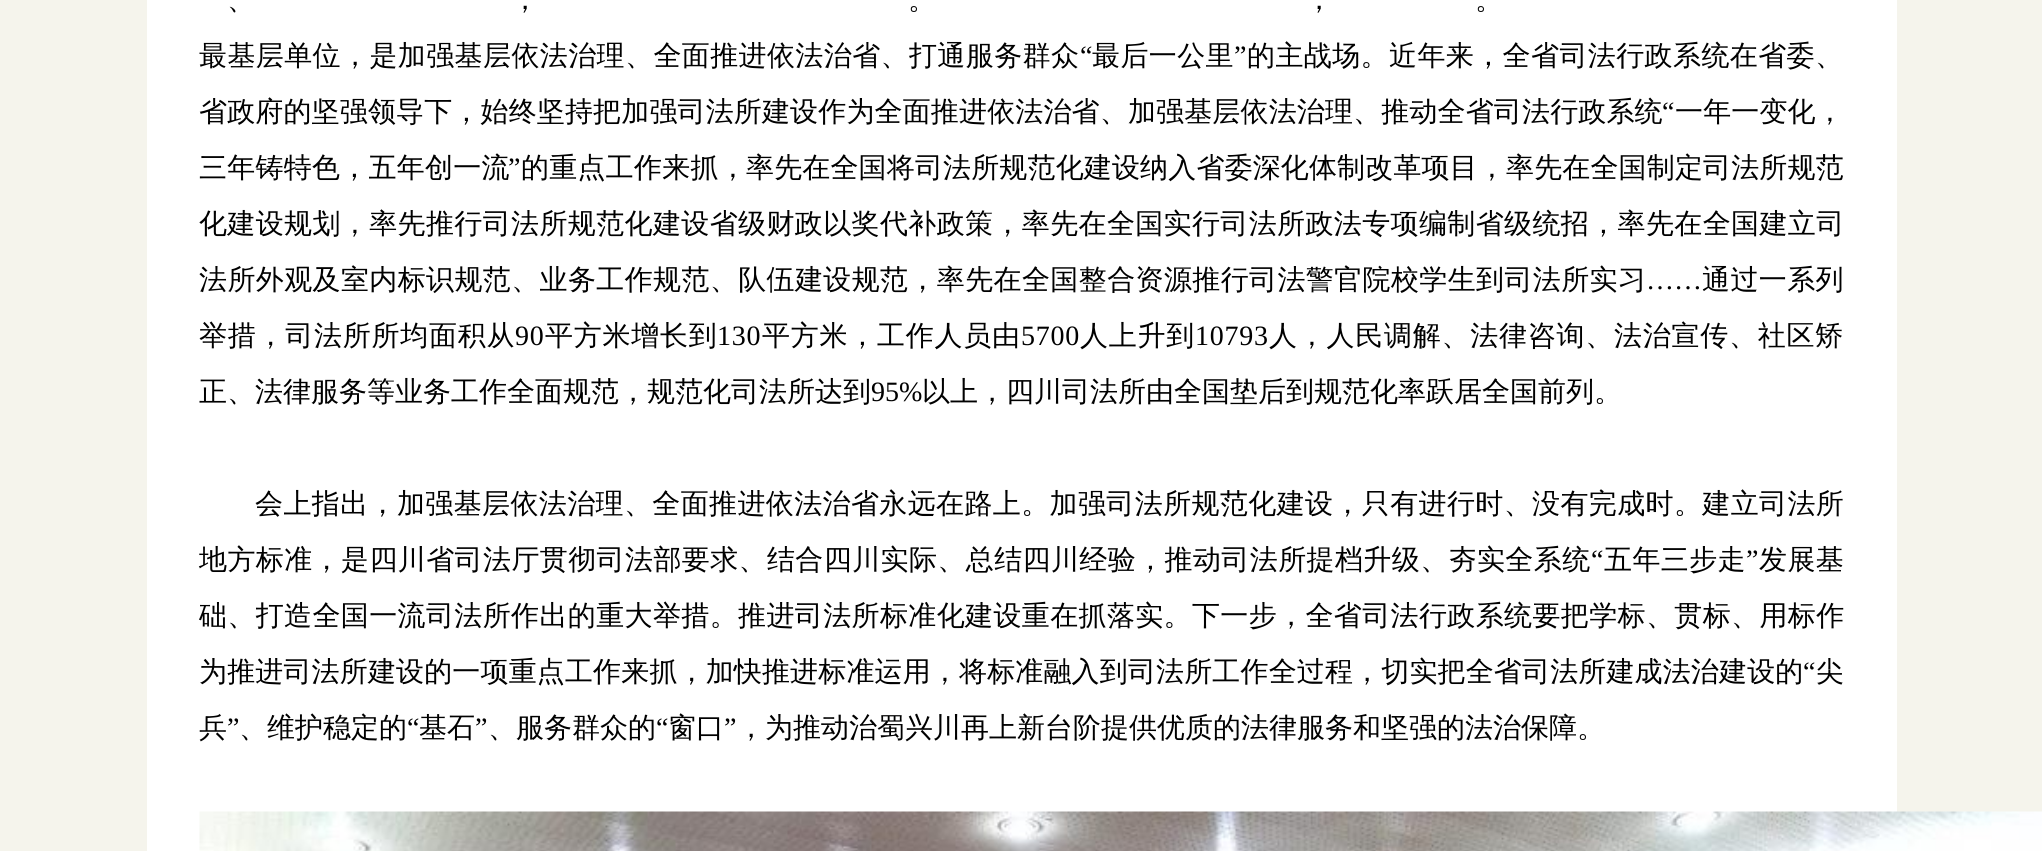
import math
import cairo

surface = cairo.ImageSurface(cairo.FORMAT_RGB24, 2042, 851)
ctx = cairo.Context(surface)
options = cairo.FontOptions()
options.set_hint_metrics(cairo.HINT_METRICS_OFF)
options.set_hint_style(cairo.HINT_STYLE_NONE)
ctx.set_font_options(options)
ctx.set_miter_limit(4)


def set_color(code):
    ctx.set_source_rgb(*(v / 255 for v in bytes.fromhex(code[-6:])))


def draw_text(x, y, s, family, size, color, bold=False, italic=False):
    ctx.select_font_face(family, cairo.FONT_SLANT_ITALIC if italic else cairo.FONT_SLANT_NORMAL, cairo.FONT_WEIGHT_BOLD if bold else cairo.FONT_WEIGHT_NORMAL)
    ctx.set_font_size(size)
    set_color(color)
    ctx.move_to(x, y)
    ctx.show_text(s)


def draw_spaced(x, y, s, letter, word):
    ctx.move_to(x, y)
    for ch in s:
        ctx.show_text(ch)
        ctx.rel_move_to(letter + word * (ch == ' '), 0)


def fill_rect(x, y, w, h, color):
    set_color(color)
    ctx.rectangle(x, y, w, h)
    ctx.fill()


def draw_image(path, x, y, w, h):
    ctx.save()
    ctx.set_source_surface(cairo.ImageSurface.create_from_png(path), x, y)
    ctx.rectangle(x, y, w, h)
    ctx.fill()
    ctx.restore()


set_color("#f5f4ec")
ctx.paint()
fill_rect(147, 0, 1750, 851, "#ffffff")
ctx.select_font_face("WenQuanYi Zen Hei Medium")
ctx.set_font_size(28)
set_color("#000000")
draw_spaced(227, 9, "、", 0.37, 0)
draw_spaced(511, 9, "，", 0.37, 0)
draw_spaced(908, 9, "。", 0.37, 0)
draw_spaced(1305, 9, "，", 0.37, 0)
draw_spaced(1475, 9, "。", 0.37, 0)
draw_spaced(199, 65, "最基层单位，是加强基层依法治理、全面推进依法治省、打通服务群众", 0.4, 0)
ctx.select_font_face("Liberation Serif")
draw_spaced(1080, 65, "“", 0.4, 0)
ctx.select_font_face("WenQuanYi Zen Hei Medium")
draw_spaced(1092, 65, "最后一公里", 0.4, 0)
ctx.select_font_face("Liberation Serif")
draw_spaced(1234, 65, "”", 0.4, 0)
ctx.select_font_face("WenQuanYi Zen Hei Medium")
draw_spaced(1247, 65, "的主战场。近年来，全省司法行政系统在省委、", 0.4, 0)
draw_spaced(199, 121, "省政府的坚强领导下，始终坚持把加强司法所建设作为全面推进依法治省、加强基层依法治理、推动全省司法行政系统", 0.15, 0)
ctx.select_font_face("Liberation Serif")
draw_spaced(1662, 121, "“", 0.15, 0)
ctx.select_font_face("WenQuanYi Zen Hei Medium")
draw_spaced(1675, 121, "一年一变化，", 0.15, 0)
draw_spaced(199, 177, "三年铸特色，五年创一流", 0.25, 0)
ctx.select_font_face("Liberation Serif")
draw_spaced(508, 177, "”", 0.25, 0)
ctx.select_font_face("WenQuanYi Zen Hei Medium")
draw_spaced(521, 177, "的重点工作来抓，", 0.25, 0)
draw_spaced(746, 177, "率先在全国将司法所规范化建设纳入省委深化体制改革项目，率先在全国制定司法所规范", 0.15, 0)
draw_spaced(199, 233, "化建设规划，率先推行司法所规范化建设省级财政以奖代补政策，率先在全国实行司法所政法专项编制省级统招，率先在全国建立司", 0.37, 0)
draw_spaced(199, 289, "法所外观及室内标识规范、业务工作规范、队伍建设规范，率先在全国整合资源推行司法警官院校学生到司法所实习", 0.38, 0)
ctx.select_font_face("Liberation Serif")
draw_spaced(1646, 289, "…", 0.38, 0)
draw_spaced(1674, 289, "…", 0.38, 0)
ctx.select_font_face("WenQuanYi Zen Hei Medium")
draw_spaced(1702, 289, "通过一系列", 0.38, 0)
draw_spaced(199, 345, "举措，司法所所均面积从", 0.75, 0)
ctx.select_font_face("Liberation Serif")
draw_spaced(515, 345, "90", 0.75, 0)
ctx.select_font_face("WenQuanYi Zen Hei Medium")
draw_spaced(545, 345, "平方米增长到", 0.75, 0)
ctx.select_font_face("Liberation Serif")
draw_spaced(717, 345, "130", 0.75, 0)
ctx.select_font_face("WenQuanYi Zen Hei Medium")
draw_spaced(762, 345, "平方米，工作人员由", 0.75, 0)
ctx.select_font_face("Liberation Serif")
draw_spaced(1021, 345, "5700", 0.75, 0)
ctx.select_font_face("WenQuanYi Zen Hei Medium")
draw_spaced(1080, 345, "人上升到", 0.75, 0)
ctx.select_font_face("Liberation Serif")
draw_spaced(1195, 345, "10793", 0.75, 0)
ctx.select_font_face("WenQuanYi Zen Hei Medium")
draw_spaced(1269, 345, "人，人民调解、法律咨询、法治宣传、社区矫", 0.75, 0)
draw_text(199, 401, "正、法律服务等业务工作全面规范，规范化司法所达到", "WenQuanYi Zen Hei Medium", 28, "#000000")
draw_text(871, 401, "95%", "Liberation Serif", 28, "#000000")
draw_text(922, 401, "以上，四川司法所由全国垫后到规范化率跃居全国前列。", "WenQuanYi Zen Hei Medium", 28, "#000000")
draw_spaced(255, 513, "会上指出，加强基层依法治理、全面推进依法治省永远在路上。加强司法所规范化建设，只有进行时、没有完成时。建立司法所", 0.38, 0)
draw_spaced(199, 569, "地方标准，是四川省司法厅贯彻司法部要求、结合四川实际、总结四川经验，推动司法所提档升级、夯实全系统", 0.4, 0)
ctx.select_font_face("Liberation Serif")
draw_spaced(1591, 569, "“", 0.4, 0)
ctx.select_font_face("WenQuanYi Zen Hei Medium")
draw_spaced(1604, 569, "五年三步走", 0.4, 0)
ctx.select_font_face("Liberation Serif")
draw_spaced(1746, 569, "”", 0.4, 0)
ctx.select_font_face("WenQuanYi Zen Hei Medium")
draw_spaced(1759, 569, "发展基", 0.4, 0)
draw_spaced(199, 625, "础、打造全国一流司法所作出的重大举措。推进司法所标准化建设重在抓落实。下一步，全省司法行政系统要把学标、贯标、用标作", 0.37, 0)
draw_spaced(199, 681, "为推进司法所建设的一项重点工作来抓，加快推进标准运用，将标准融入到司法所工作全过程，切实把全省司法所建成法治建设的", 0.15, 0)
ctx.select_font_face("Liberation Serif")
draw_spaced(1803, 681, "“", 0.15, 0)
ctx.select_font_face("WenQuanYi Zen Hei Medium")
draw_spaced(1816, 681, "尖", 0.15, 0)
draw_text(199, 737, "兵", "WenQuanYi Zen Hei Medium", 28, "#000000")
draw_text(227, 737, "”", "Liberation Serif", 28, "#000000")
draw_text(239, 737, "、维护稳定的", "WenQuanYi Zen Hei Medium", 28, "#000000")
draw_text(407, 737, "“", "Liberation Serif", 28, "#000000")
draw_text(419, 737, "基石", "WenQuanYi Zen Hei Medium", 28, "#000000")
draw_text(475, 737, "”", "Liberation Serif", 28, "#000000")
draw_text(488, 737, "、服务群众的", "WenQuanYi Zen Hei Medium", 28, "#000000")
draw_text(656, 737, "“", "Liberation Serif", 28, "#000000")
draw_text(668, 737, "窗口", "WenQuanYi Zen Hei Medium", 28, "#000000")
draw_text(724, 737, "”", "Liberation Serif", 28, "#000000")
draw_text(737, 737, "，为推动治蜀兴川再上新台阶提供优质的法律服务和坚强的法治保障。", "WenQuanYi Zen Hei Medium", 28, "#000000")
draw_image("assets/img1.png", 199, 811, 1843, 40)
surface.write_to_png("output.png")
